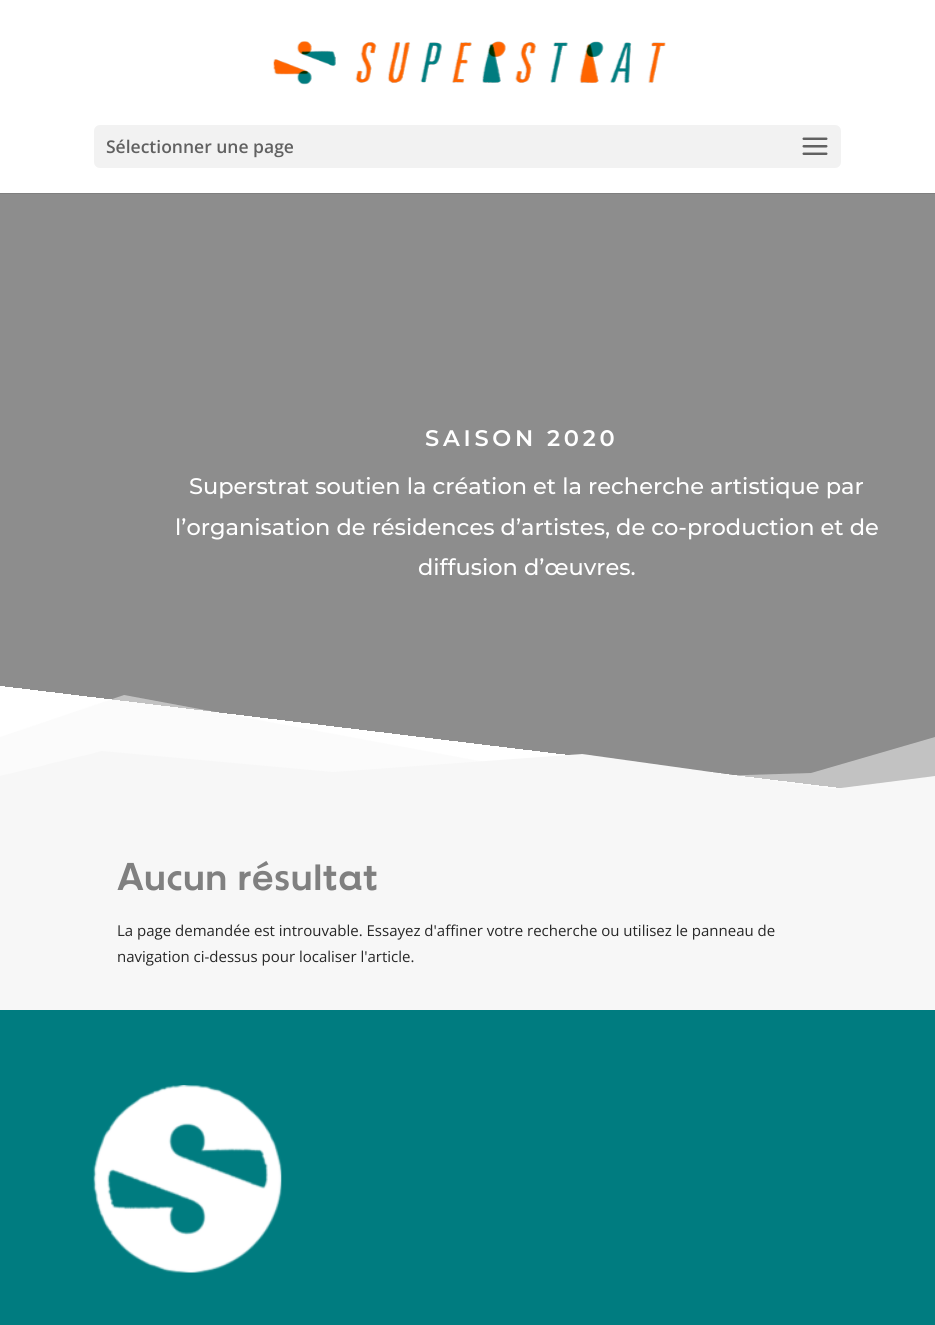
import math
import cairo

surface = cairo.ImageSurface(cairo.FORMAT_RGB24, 935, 1325)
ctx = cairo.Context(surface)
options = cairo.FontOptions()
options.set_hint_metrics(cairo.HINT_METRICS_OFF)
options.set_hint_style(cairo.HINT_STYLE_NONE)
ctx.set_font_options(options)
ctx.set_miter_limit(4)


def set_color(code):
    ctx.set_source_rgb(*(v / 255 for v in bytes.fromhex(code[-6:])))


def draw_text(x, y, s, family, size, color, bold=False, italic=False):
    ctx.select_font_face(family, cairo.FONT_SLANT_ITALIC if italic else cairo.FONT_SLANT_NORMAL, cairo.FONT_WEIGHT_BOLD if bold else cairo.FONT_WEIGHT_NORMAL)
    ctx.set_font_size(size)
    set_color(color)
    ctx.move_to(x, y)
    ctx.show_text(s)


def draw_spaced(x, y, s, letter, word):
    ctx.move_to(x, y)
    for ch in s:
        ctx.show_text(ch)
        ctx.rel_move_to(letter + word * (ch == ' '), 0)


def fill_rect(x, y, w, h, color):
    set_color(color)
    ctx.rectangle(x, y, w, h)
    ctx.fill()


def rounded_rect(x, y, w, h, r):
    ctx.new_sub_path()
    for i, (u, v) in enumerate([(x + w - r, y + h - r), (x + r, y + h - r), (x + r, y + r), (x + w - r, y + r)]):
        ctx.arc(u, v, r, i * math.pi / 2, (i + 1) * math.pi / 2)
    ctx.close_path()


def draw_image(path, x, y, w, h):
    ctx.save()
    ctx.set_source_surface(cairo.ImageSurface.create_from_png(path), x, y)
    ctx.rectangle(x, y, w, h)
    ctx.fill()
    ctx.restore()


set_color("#007c80")
ctx.paint()
fill_rect(0, 193, 935, 1, "#7f7f7f")
fill_rect(0, 0, 935, 193, "#ffffff")
draw_image("assets/img1.png", 273, 41, 393, 44)
set_color("#f2f2f2")
rounded_rect(94, 125, 747, 43, 6)
ctx.fill()
draw_text(106, 153, "Sélectionner une page", "Open Sans SemiBold", 17.5, "#616161")
draw_image("assets/img2.png", 802, 137, 26, 18)
gradient = cairo.LinearGradient(423, 871, 512, 139)
gradient.add_color_stop_rgba(0.18, 1, 1, 1, 1)
gradient.add_color_stop_rgba(0.18, 0.553, 0.553, 0.553, 1)
ctx.set_source(gradient)
ctx.rectangle(0, 194, 935, 595)
ctx.fill()
ctx.select_font_face("Montserrat SemiBold")
ctx.set_font_size(22.5)
set_color("#ffffff")
draw_spaced(425, 446, "SAISON 2020", 3.75, 0)
draw_text(189, 494, "Superstrat soutien la création et la recherche artistique par", "Montserrat Medium", 22.5, "#ffffff")
draw_text(175, 535, "l’organisation de résidences d’artistes, de co-production et de", "Montserrat Medium", 22.5, "#ffffff")
draw_text(418, 575, "diffusion d’œuvres.", "Montserrat Medium", 22.5, "#ffffff")
ctx.save()
ctx.rectangle(0, 695, 935, 124)
ctx.clip()
ctx.set_source_rgba(0.969, 0.969, 0.969, 0.5)
ctx.new_path()
ctx.move_to(0, 737)
ctx.line_to(124, 695)
ctx.line_to(582, 780)
ctx.line_to(811, 773)
ctx.line_to(935, 737)
ctx.line_to(935, 820)
ctx.line_to(0, 820)
ctx.close_path()
ctx.fill()
set_color("#f7f7f7")
ctx.new_path()
ctx.move_to(0, 776)
ctx.line_to(102, 751)
ctx.line_to(333, 772)
ctx.line_to(582, 754)
ctx.line_to(833, 789)
ctx.line_to(935, 776)
ctx.line_to(935, 820)
ctx.line_to(0, 820)
ctx.close_path()
ctx.fill()
ctx.restore()
fill_rect(0, 819, 935, 191, "#f7f7f7")
draw_text(117, 890, "Aucun résultat", "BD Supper", 38.75, "#808080")
draw_text(117, 936, "La page demandée est introuvable. Essayez d'affiner votre recherche ou utilisez le panneau de", "Open Sans", 15, "#272727")
draw_text(117, 962, "navigation ci-dessus pour localiser l'article.", "Open Sans", 15, "#272727")
draw_image("assets/img3.png", 93, 1085, 189, 188)
surface.write_to_png("output.png")
